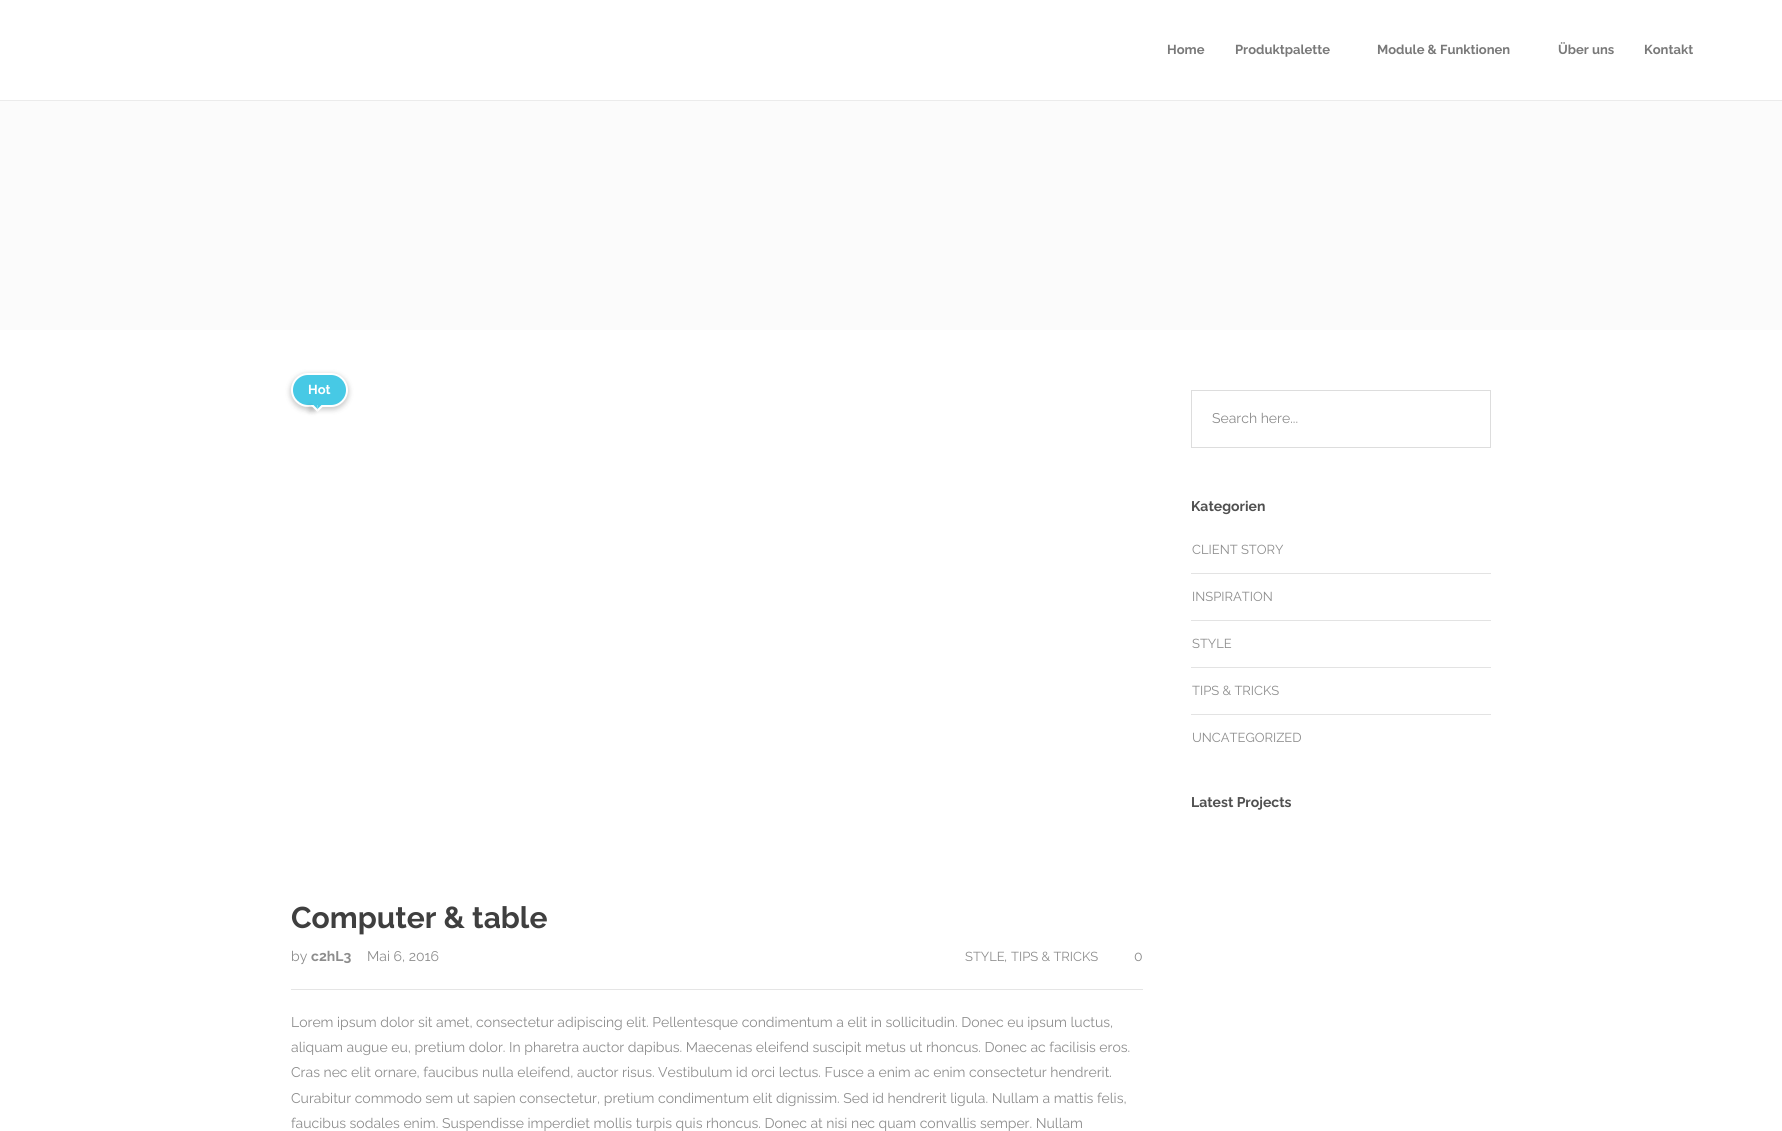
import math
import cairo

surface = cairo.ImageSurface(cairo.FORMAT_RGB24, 1782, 1131)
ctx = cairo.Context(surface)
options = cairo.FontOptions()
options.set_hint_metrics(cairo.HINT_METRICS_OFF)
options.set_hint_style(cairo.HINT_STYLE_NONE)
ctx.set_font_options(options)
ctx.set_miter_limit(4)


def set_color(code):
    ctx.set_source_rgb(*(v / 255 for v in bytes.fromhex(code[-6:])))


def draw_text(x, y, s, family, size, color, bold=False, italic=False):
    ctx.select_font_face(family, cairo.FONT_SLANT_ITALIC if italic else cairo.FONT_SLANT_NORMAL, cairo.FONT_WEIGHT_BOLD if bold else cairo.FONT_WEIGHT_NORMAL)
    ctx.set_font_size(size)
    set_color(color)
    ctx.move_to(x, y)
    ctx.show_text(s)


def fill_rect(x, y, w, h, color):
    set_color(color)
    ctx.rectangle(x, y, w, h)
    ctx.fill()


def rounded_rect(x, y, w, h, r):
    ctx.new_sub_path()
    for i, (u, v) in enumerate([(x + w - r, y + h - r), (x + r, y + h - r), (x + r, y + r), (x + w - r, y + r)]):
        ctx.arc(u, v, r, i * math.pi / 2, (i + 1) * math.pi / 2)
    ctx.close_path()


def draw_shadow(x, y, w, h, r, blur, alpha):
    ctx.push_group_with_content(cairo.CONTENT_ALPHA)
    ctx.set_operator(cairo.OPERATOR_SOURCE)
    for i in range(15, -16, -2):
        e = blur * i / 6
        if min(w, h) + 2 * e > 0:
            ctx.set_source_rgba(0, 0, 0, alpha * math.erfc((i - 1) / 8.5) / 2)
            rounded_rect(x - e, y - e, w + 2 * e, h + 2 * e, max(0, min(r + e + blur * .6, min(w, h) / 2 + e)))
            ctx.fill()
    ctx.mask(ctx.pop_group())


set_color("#ffffff")
ctx.paint()
fill_rect(0, 100, 1782, 1, "#ebebeb")
draw_text(1167, 54, "Home", "Raleway", 13, "#797979", bold=True)
draw_text(1235, 54, "Produktpalette", "Raleway", 13, "#797979", bold=True)
draw_text(1377, 54, "Module & Funktionen", "Raleway", 13, "#797979", bold=True)
draw_text(1558, 54, "Über uns", "Raleway", 13, "#797979", bold=True)
draw_text(1644, 54, "Kontakt", "Raleway", 13, "#797979", bold=True)
fill_rect(0, 101, 1782, 229, "#fbfbfb")
set_color("#000000")
draw_shadow(290, 374, 59, 36, 18, 2.5, 0.2)
set_color("#47c9e5")
rounded_rect(292, 374, 55, 32, 16)
ctx.fill_preserve()
set_color("#ffffff")
ctx.stroke()
draw_text(308, 394, "Hot", "Raleway", 13, "#ffffff", bold=True)
set_color("#000000")
draw_shadow(309, 406, 6, 6, 0, 2.5, 0.15)
set_color("#ffffff")
ctx.new_path()
ctx.move_to(324.5, 405)
ctx.line_to(317.5, 412)
ctx.line_to(317.5, 405)
ctx.close_path()
ctx.fill()
ctx.new_path()
ctx.move_to(317.5, 412)
ctx.line_to(310.5, 405)
ctx.line_to(317.5, 405)
ctx.close_path()
ctx.fill()
set_color("#47c9e5")
ctx.new_path()
ctx.move_to(324.5, 402)
ctx.line_to(317.5, 409)
ctx.line_to(317.5, 402)
ctx.close_path()
ctx.fill()
ctx.new_path()
ctx.move_to(317.5, 409)
ctx.line_to(310.5, 402)
ctx.line_to(317.5, 402)
ctx.close_path()
ctx.fill()
draw_text(291, 928, "Computer & table", "Raleway", 30, "#3f3f3f", bold=True)
fill_rect(291, 989, 852, 1, "#e5e5e5")
draw_text(291, 961, "by", "Raleway", 14, "#8d8d8d")
draw_text(311, 961, "c2hL3", "Raleway", 14, "#8d8d8d", bold=True)
draw_text(367, 961, "Mai 6, 2016", "Raleway", 14, "#8d8d8d")
draw_text(965, 961, "STYLE", "Raleway", 13, "#8d8d8d")
draw_text(1004, 961, ",", "Raleway", 14, "#8d8d8d")
draw_text(1011, 961, "TIPS & TRICKS", "Raleway", 13, "#8d8d8d")
draw_text(1134, 961, "0", "Raleway", 14, "#8d8d8d")
draw_text(291, 1027, "Lorem ipsum dolor sit amet, consectetur adipiscing elit. Pellentesque condimentum a elit in sollicitudin. Donec eu ipsum luctus,", "Raleway", 14, "#8d8d8d")
draw_text(291, 1052, "aliquam augue eu, pretium dolor. In pharetra auctor dapibus. Maecenas eleifend suscipit metus ut rhoncus. Donec ac facilisis eros.", "Raleway", 14, "#8d8d8d")
draw_text(291, 1077, "Cras nec elit ornare, faucibus nulla eleifend, auctor risus. Vestibulum id orci lectus. Fusce a enim ac enim consectetur hendrerit.", "Raleway", 14, "#8d8d8d")
draw_text(291, 1103, "Curabitur commodo sem ut sapien consectetur, pretium condimentum elit dignissim. Sed id hendrerit ligula. Nullam a mattis felis,", "Raleway", 14, "#8d8d8d")
draw_text(291, 1128, "faucibus sodales enim. Suspendisse imperdiet mollis turpis quis rhoncus. Donec at nisi nec quam convallis semper. Nullam", "Raleway", 14, "#8d8d8d")
ctx.rectangle(1191.5, 390.5, 299, 57)
set_color("#dddddd")
ctx.set_line_width(1)
ctx.stroke()
draw_text(1212, 423, "Search here...", "Raleway", 14, "#8d8d8d")
draw_text(1191, 511, "Kategorien", "Raleway", 14, "#505050", bold=True)
fill_rect(1191, 573, 300, 1, "#e3e3e3")
draw_text(1192, 554, "CLIENT STORY", "Raleway", 13, "#8d8d8d")
fill_rect(1191, 620, 300, 1, "#e3e3e3")
draw_text(1192, 601, "INSPIRATION", "Raleway", 13, "#8d8d8d")
fill_rect(1191, 667, 300, 1, "#e3e3e3")
draw_text(1192, 648, "STYLE", "Raleway", 13, "#8d8d8d")
fill_rect(1191, 714, 300, 1, "#e3e3e3")
draw_text(1192, 695, "TIPS & TRICKS", "Raleway", 13, "#8d8d8d")
draw_text(1192, 742, "UNCATEGORIZED", "Raleway", 13, "#8d8d8d")
draw_text(1191, 807, "Latest Projects", "Raleway", 14, "#505050", bold=True)
surface.write_to_png("output.png")
